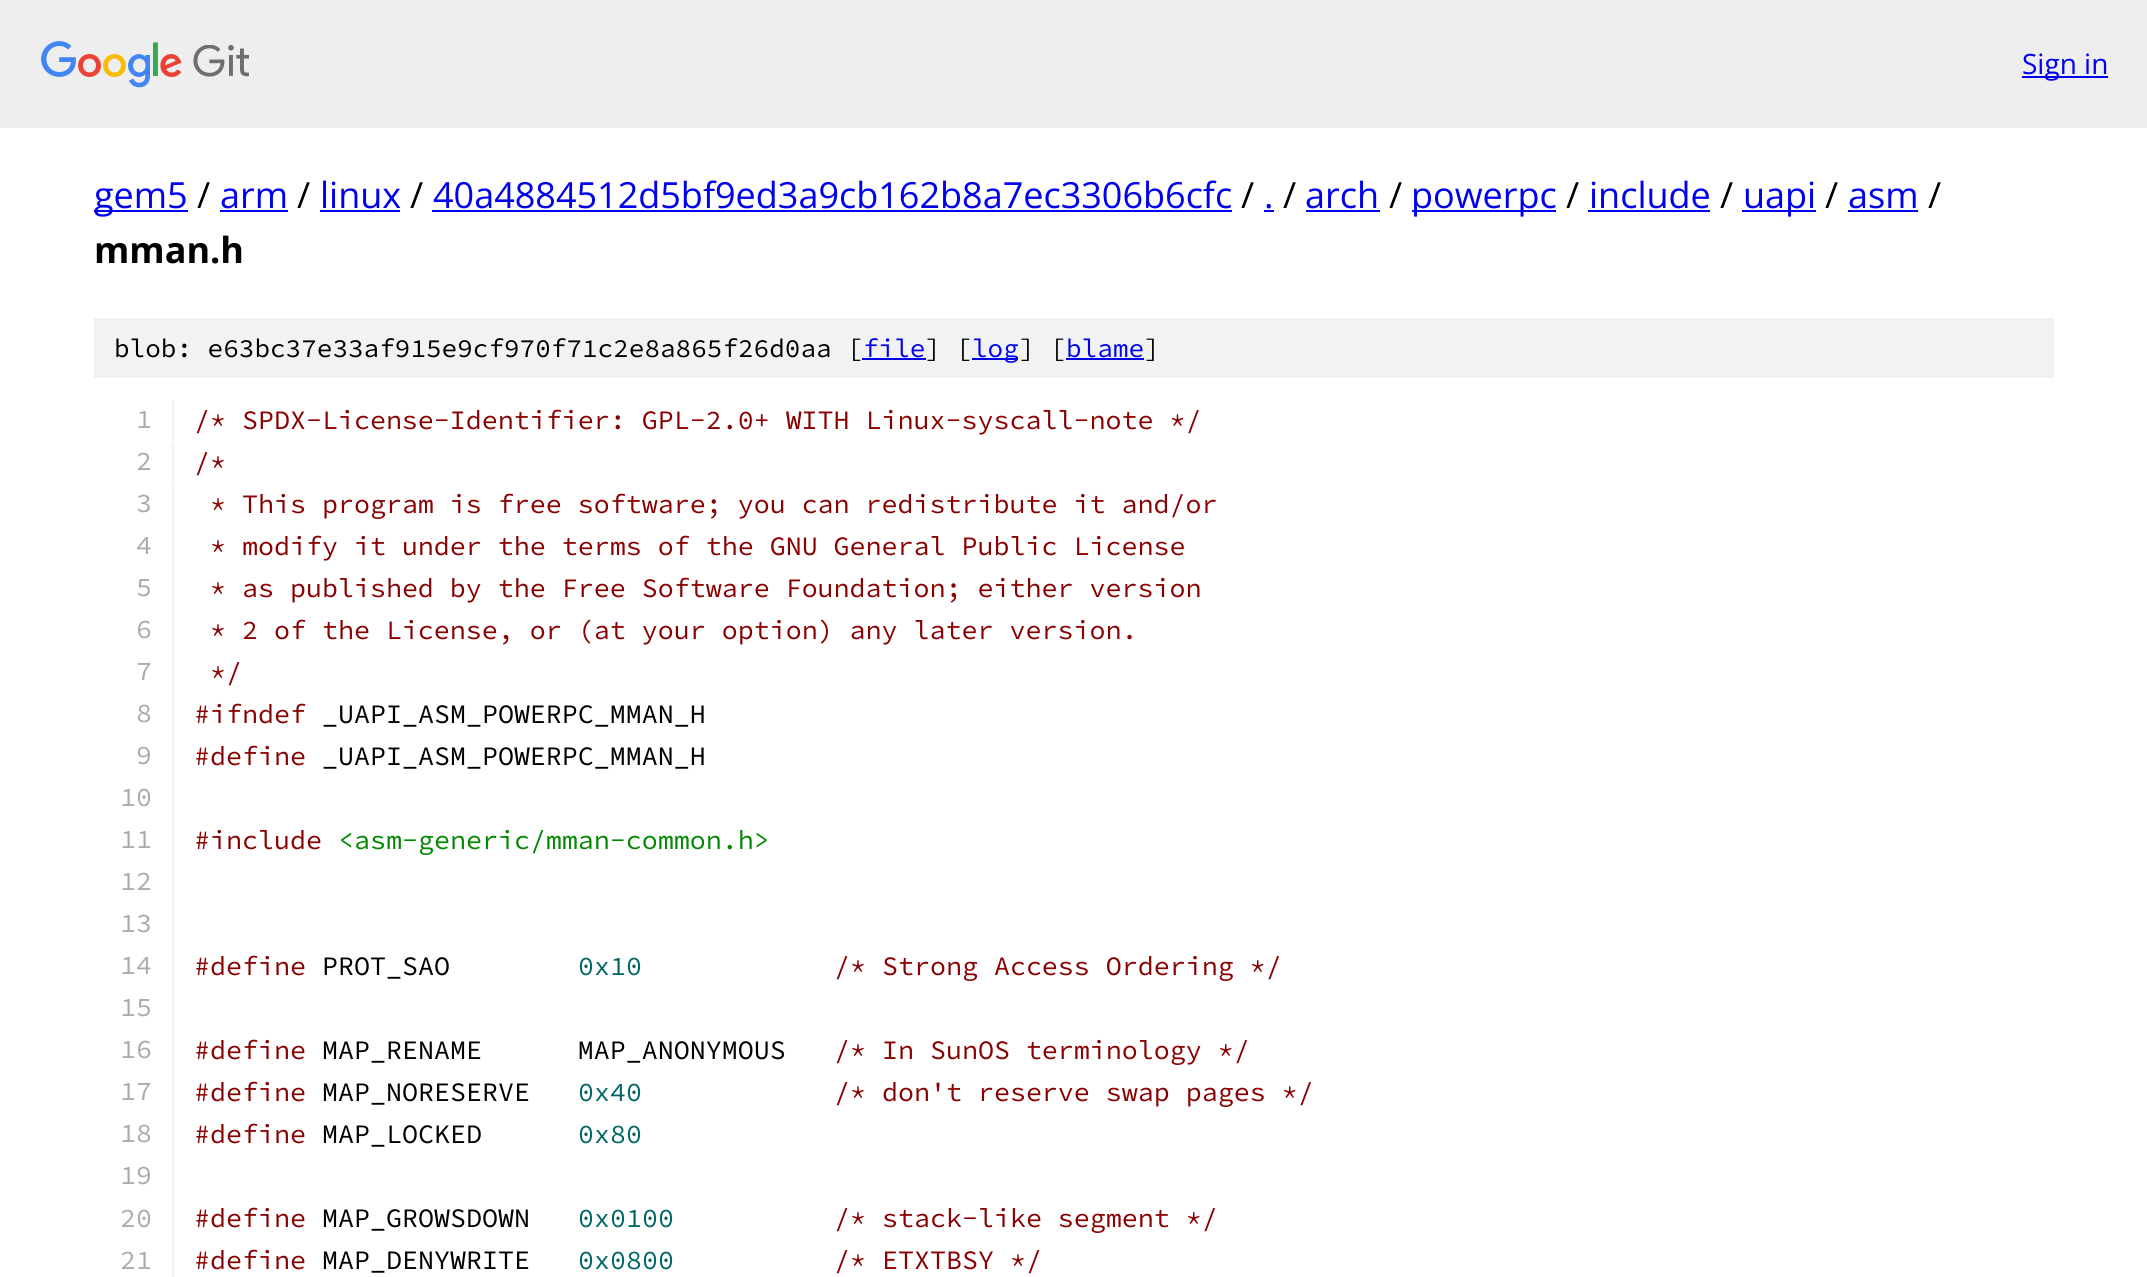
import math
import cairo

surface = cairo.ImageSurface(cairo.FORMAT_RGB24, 2147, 1277)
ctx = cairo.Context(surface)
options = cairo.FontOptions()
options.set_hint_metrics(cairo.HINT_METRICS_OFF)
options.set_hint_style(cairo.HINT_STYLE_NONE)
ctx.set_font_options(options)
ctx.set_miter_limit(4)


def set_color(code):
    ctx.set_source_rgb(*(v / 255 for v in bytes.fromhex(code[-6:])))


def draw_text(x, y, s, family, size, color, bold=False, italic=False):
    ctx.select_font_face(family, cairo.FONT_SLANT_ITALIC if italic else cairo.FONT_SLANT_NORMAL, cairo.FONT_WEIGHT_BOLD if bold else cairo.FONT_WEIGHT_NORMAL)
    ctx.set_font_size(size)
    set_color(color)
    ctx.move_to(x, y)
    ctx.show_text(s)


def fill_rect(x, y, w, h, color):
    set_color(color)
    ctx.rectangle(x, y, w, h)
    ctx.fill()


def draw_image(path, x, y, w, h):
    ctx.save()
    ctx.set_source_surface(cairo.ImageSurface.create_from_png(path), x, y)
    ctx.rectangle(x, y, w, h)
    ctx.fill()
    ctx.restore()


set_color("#ffffff")
ctx.paint()
fill_rect(0, 0, 2147, 128, "#eeeeee")
draw_image("assets/img1.png", 41, 41, 208, 47)
fill_rect(2022, 76, 86, 2, "#0000ee")
draw_text(2022, 74, "Sign in", "Open Sans", 28, "#0000ee")
fill_rect(94, 210, 94, 2, "#0000ee")
draw_text(94, 208, "gem5", "Open Sans", 36, "#0000ee")
draw_text(197, 208, "/", "Open Sans", 36, "#000000")
draw_text(220, 208, "arm", "Open Sans", 36, "#0000ee")
fill_rect(220, 210, 68, 2, "#0000ee")
draw_text(297, 208, "/", "Open Sans", 36, "#000000")
draw_text(320, 208, "linux", "Open Sans", 36, "#0000ee")
fill_rect(320, 210, 80, 2, "#0000ee")
draw_text(410, 208, "/", "Open Sans", 36, "#000000")
draw_text(433, 208, "40a4884512d5bf9ed3a9cb162b8a7ec3306b6cfc", "Open Sans", 36, "#0000ee")
fill_rect(432, 210, 800, 2, "#0000ee")
draw_text(1241, 208, "/", "Open Sans", 36, "#000000")
draw_text(1264, 208, ".", "Open Sans", 36, "#0000ee")
fill_rect(1264, 210, 10, 2, "#0000ee")
draw_text(1283, 208, "/", "Open Sans", 36, "#000000")
draw_text(1305, 208, "arch", "Open Sans", 36, "#0000ee")
fill_rect(1306, 210, 74, 2, "#0000ee")
draw_text(1389, 208, "/", "Open Sans", 36, "#000000")
fill_rect(1412, 210, 144, 2, "#0000ee")
draw_text(1411, 208, "powerpc", "Open Sans", 36, "#0000ee")
draw_text(1566, 208, "/", "Open Sans", 36, "#000000")
draw_text(1589, 208, "include", "Open Sans", 36, "#0000ee")
fill_rect(1588, 210, 122, 2, "#0000ee")
draw_text(1720, 208, "/", "Open Sans", 36, "#000000")
fill_rect(1742, 210, 74, 2, "#0000ee")
draw_text(1743, 208, "uapi", "Open Sans", 36, "#0000ee")
draw_text(1825, 208, "/", "Open Sans", 36, "#000000")
draw_text(1848, 208, "asm", "Open Sans", 36, "#0000ee")
fill_rect(1848, 210, 70, 2, "#0000ee")
draw_text(1928, 208, "/", "Open Sans", 36, "#000000")
draw_text(94, 263, "mman.h", "Open Sans", 36, "#000000", bold=True)
fill_rect(94, 318, 1960, 60, "#f1f2f3")
draw_text(114, 357, "blob: e63bc37e33af915e9cf970f71c2e8a865f26d0aa [", "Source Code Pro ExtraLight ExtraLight", 26, "#000000")
draw_text(863, 357, "file", "Source Code Pro ExtraLight ExtraLight", 26, "#0000ee")
fill_rect(862, 358, 64, 2, "#0000ee")
draw_text(925, 357, "] [", "Source Code Pro ExtraLight ExtraLight", 26, "#000000")
fill_rect(972, 358, 46, 2, "#0000ee")
draw_text(972, 357, "log", "Source Code Pro ExtraLight ExtraLight", 26, "#0000ee")
draw_text(1019, 357, "] [", "Source Code Pro ExtraLight ExtraLight", 26, "#000000")
draw_text(1066, 357, "blame", "Source Code Pro ExtraLight ExtraLight", 26, "#0000ee")
fill_rect(1066, 358, 78, 2, "#0000ee")
draw_text(1144, 357, "]", "Source Code Pro ExtraLight ExtraLight", 26, "#000000")
fill_rect(172, 400, 2, 40, "#f1f2f3")
draw_text(136, 428, "1", "Source Code Pro ExtraLight ExtraLight", 26.65, "#aaaaaa")
draw_text(194, 429, "/* SPDX-License-Identifier: GPL-2.0+ WITH Linux-syscall-note */", "Source Code Pro ExtraLight ExtraLight", 26.65, "#880000")
fill_rect(172, 442, 2, 40, "#f1f2f3")
draw_text(136, 470, "2", "Source Code Pro ExtraLight ExtraLight", 26.65, "#aaaaaa")
draw_text(194, 471, "/*", "Source Code Pro ExtraLight ExtraLight", 26.65, "#880000")
fill_rect(172, 484, 2, 793, "#f1f2f3")
draw_text(136, 512, "3", "Source Code Pro ExtraLight ExtraLight", 26.65, "#aaaaaa")
draw_text(210, 513, "* This program is free software; you can redistribute it and/or", "Source Code Pro ExtraLight ExtraLight", 26.65, "#880000")
draw_text(136, 554, "4", "Source Code Pro ExtraLight ExtraLight", 26.65, "#aaaaaa")
draw_text(210, 555, "* modify it under the terms of the GNU General Public License", "Source Code Pro ExtraLight ExtraLight", 26.65, "#880000")
draw_text(136, 596, "5", "Source Code Pro ExtraLight ExtraLight", 26.65, "#aaaaaa")
draw_text(210, 597, "* as published by the Free Software Foundation; either version", "Source Code Pro ExtraLight ExtraLight", 26.65, "#880000")
draw_text(136, 638, "6", "Source Code Pro ExtraLight ExtraLight", 26.65, "#aaaaaa")
draw_text(210, 639, "* 2 of the License, or (at your option) any later version.", "Source Code Pro ExtraLight ExtraLight", 26.65, "#880000")
draw_text(136, 680, "7", "Source Code Pro ExtraLight ExtraLight", 26.65, "#aaaaaa")
draw_text(210, 681, "*/", "Source Code Pro ExtraLight ExtraLight", 26.65, "#880000")
draw_text(136, 722, "8", "Source Code Pro ExtraLight ExtraLight", 26.65, "#aaaaaa")
draw_text(194, 723, "#ifndef", "Source Code Pro ExtraLight ExtraLight", 26.65, "#880000")
draw_text(322, 723, "_UAPI_ASM_POWERPC_MMAN_H", "Source Code Pro ExtraLight ExtraLight", 26.65, "#000000")
draw_text(136, 764, "9", "Source Code Pro ExtraLight ExtraLight", 26.65, "#aaaaaa")
draw_text(194, 765, "#define", "Source Code Pro ExtraLight ExtraLight", 26.65, "#880000")
draw_text(322, 765, "_UAPI_ASM_POWERPC_MMAN_H", "Source Code Pro ExtraLight ExtraLight", 26.65, "#000000")
draw_text(120, 806, "10", "Source Code Pro ExtraLight ExtraLight", 26.65, "#aaaaaa")
draw_text(120, 848, "11", "Source Code Pro ExtraLight ExtraLight", 26.65, "#aaaaaa")
draw_text(194, 849, "#include", "Source Code Pro ExtraLight ExtraLight", 26.65, "#880000")
draw_text(338, 849, "<asm-generic/mman-common.h>", "Source Code Pro ExtraLight ExtraLight", 26.65, "#008800")
draw_text(120, 890, "12", "Source Code Pro ExtraLight ExtraLight", 26.65, "#aaaaaa")
draw_text(120, 932, "13", "Source Code Pro ExtraLight ExtraLight", 26.65, "#aaaaaa")
draw_text(120, 974, "14", "Source Code Pro ExtraLight ExtraLight", 26.65, "#aaaaaa")
draw_text(194, 975, "#define", "Source Code Pro ExtraLight ExtraLight", 26.65, "#880000")
draw_text(322, 975, "PROT_SAO", "Source Code Pro ExtraLight ExtraLight", 26.65, "#000000")
draw_text(578, 975, "0x10", "Source Code Pro ExtraLight ExtraLight", 26.65, "#006666")
draw_text(834, 975, "/* Strong Access Ordering */", "Source Code Pro ExtraLight ExtraLight", 26.65, "#880000")
draw_text(120, 1016, "15", "Source Code Pro ExtraLight ExtraLight", 26.65, "#aaaaaa")
draw_text(120, 1058, "16", "Source Code Pro ExtraLight ExtraLight", 26.65, "#aaaaaa")
draw_text(194, 1059, "#define", "Source Code Pro ExtraLight ExtraLight", 26.65, "#880000")
draw_text(322, 1059, "MAP_RENAME      MAP_ANONYMOUS", "Source Code Pro ExtraLight ExtraLight", 26.65, "#000000")
draw_text(834, 1059, "/* In SunOS terminology */", "Source Code Pro ExtraLight ExtraLight", 26.65, "#880000")
draw_text(120, 1100, "17", "Source Code Pro ExtraLight ExtraLight", 26.65, "#aaaaaa")
draw_text(194, 1101, "#define", "Source Code Pro ExtraLight ExtraLight", 26.65, "#880000")
draw_text(322, 1101, "MAP_NORESERVE", "Source Code Pro ExtraLight ExtraLight", 26.65, "#000000")
draw_text(578, 1101, "0x40", "Source Code Pro ExtraLight ExtraLight", 26.65, "#006666")
draw_text(834, 1101, "/* don't reserve swap pages */", "Source Code Pro ExtraLight ExtraLight", 26.65, "#880000")
draw_text(120, 1142, "18", "Source Code Pro ExtraLight ExtraLight", 26.65, "#aaaaaa")
draw_text(194, 1143, "#define", "Source Code Pro ExtraLight ExtraLight", 26.65, "#880000")
draw_text(322, 1143, "MAP_LOCKED", "Source Code Pro ExtraLight ExtraLight", 26.65, "#000000")
draw_text(578, 1143, "0x80", "Source Code Pro ExtraLight ExtraLight", 26.65, "#006666")
draw_text(120, 1184, "19", "Source Code Pro ExtraLight ExtraLight", 26.65, "#aaaaaa")
draw_text(120, 1227, "20", "Source Code Pro ExtraLight ExtraLight", 26.65, "#aaaaaa")
draw_text(194, 1227, "#define", "Source Code Pro ExtraLight ExtraLight", 26.65, "#880000")
draw_text(322, 1227, "MAP_GROWSDOWN", "Source Code Pro ExtraLight ExtraLight", 26.65, "#000000")
draw_text(578, 1227, "0x0100", "Source Code Pro ExtraLight ExtraLight", 26.65, "#006666")
draw_text(834, 1227, "/* stack-like segment */", "Source Code Pro ExtraLight ExtraLight", 26.65, "#880000")
draw_text(120, 1269, "21", "Source Code Pro ExtraLight ExtraLight", 26.65, "#aaaaaa")
draw_text(194, 1269, "#define", "Source Code Pro ExtraLight ExtraLight", 26.65, "#880000")
draw_text(322, 1269, "MAP_DENYWRITE", "Source Code Pro ExtraLight ExtraLight", 26.65, "#000000")
draw_text(578, 1269, "0x0800", "Source Code Pro ExtraLight ExtraLight", 26.65, "#006666")
draw_text(834, 1269, "/* ETXTBSY */", "Source Code Pro ExtraLight ExtraLight", 26.65, "#880000")
surface.write_to_png("output.png")
